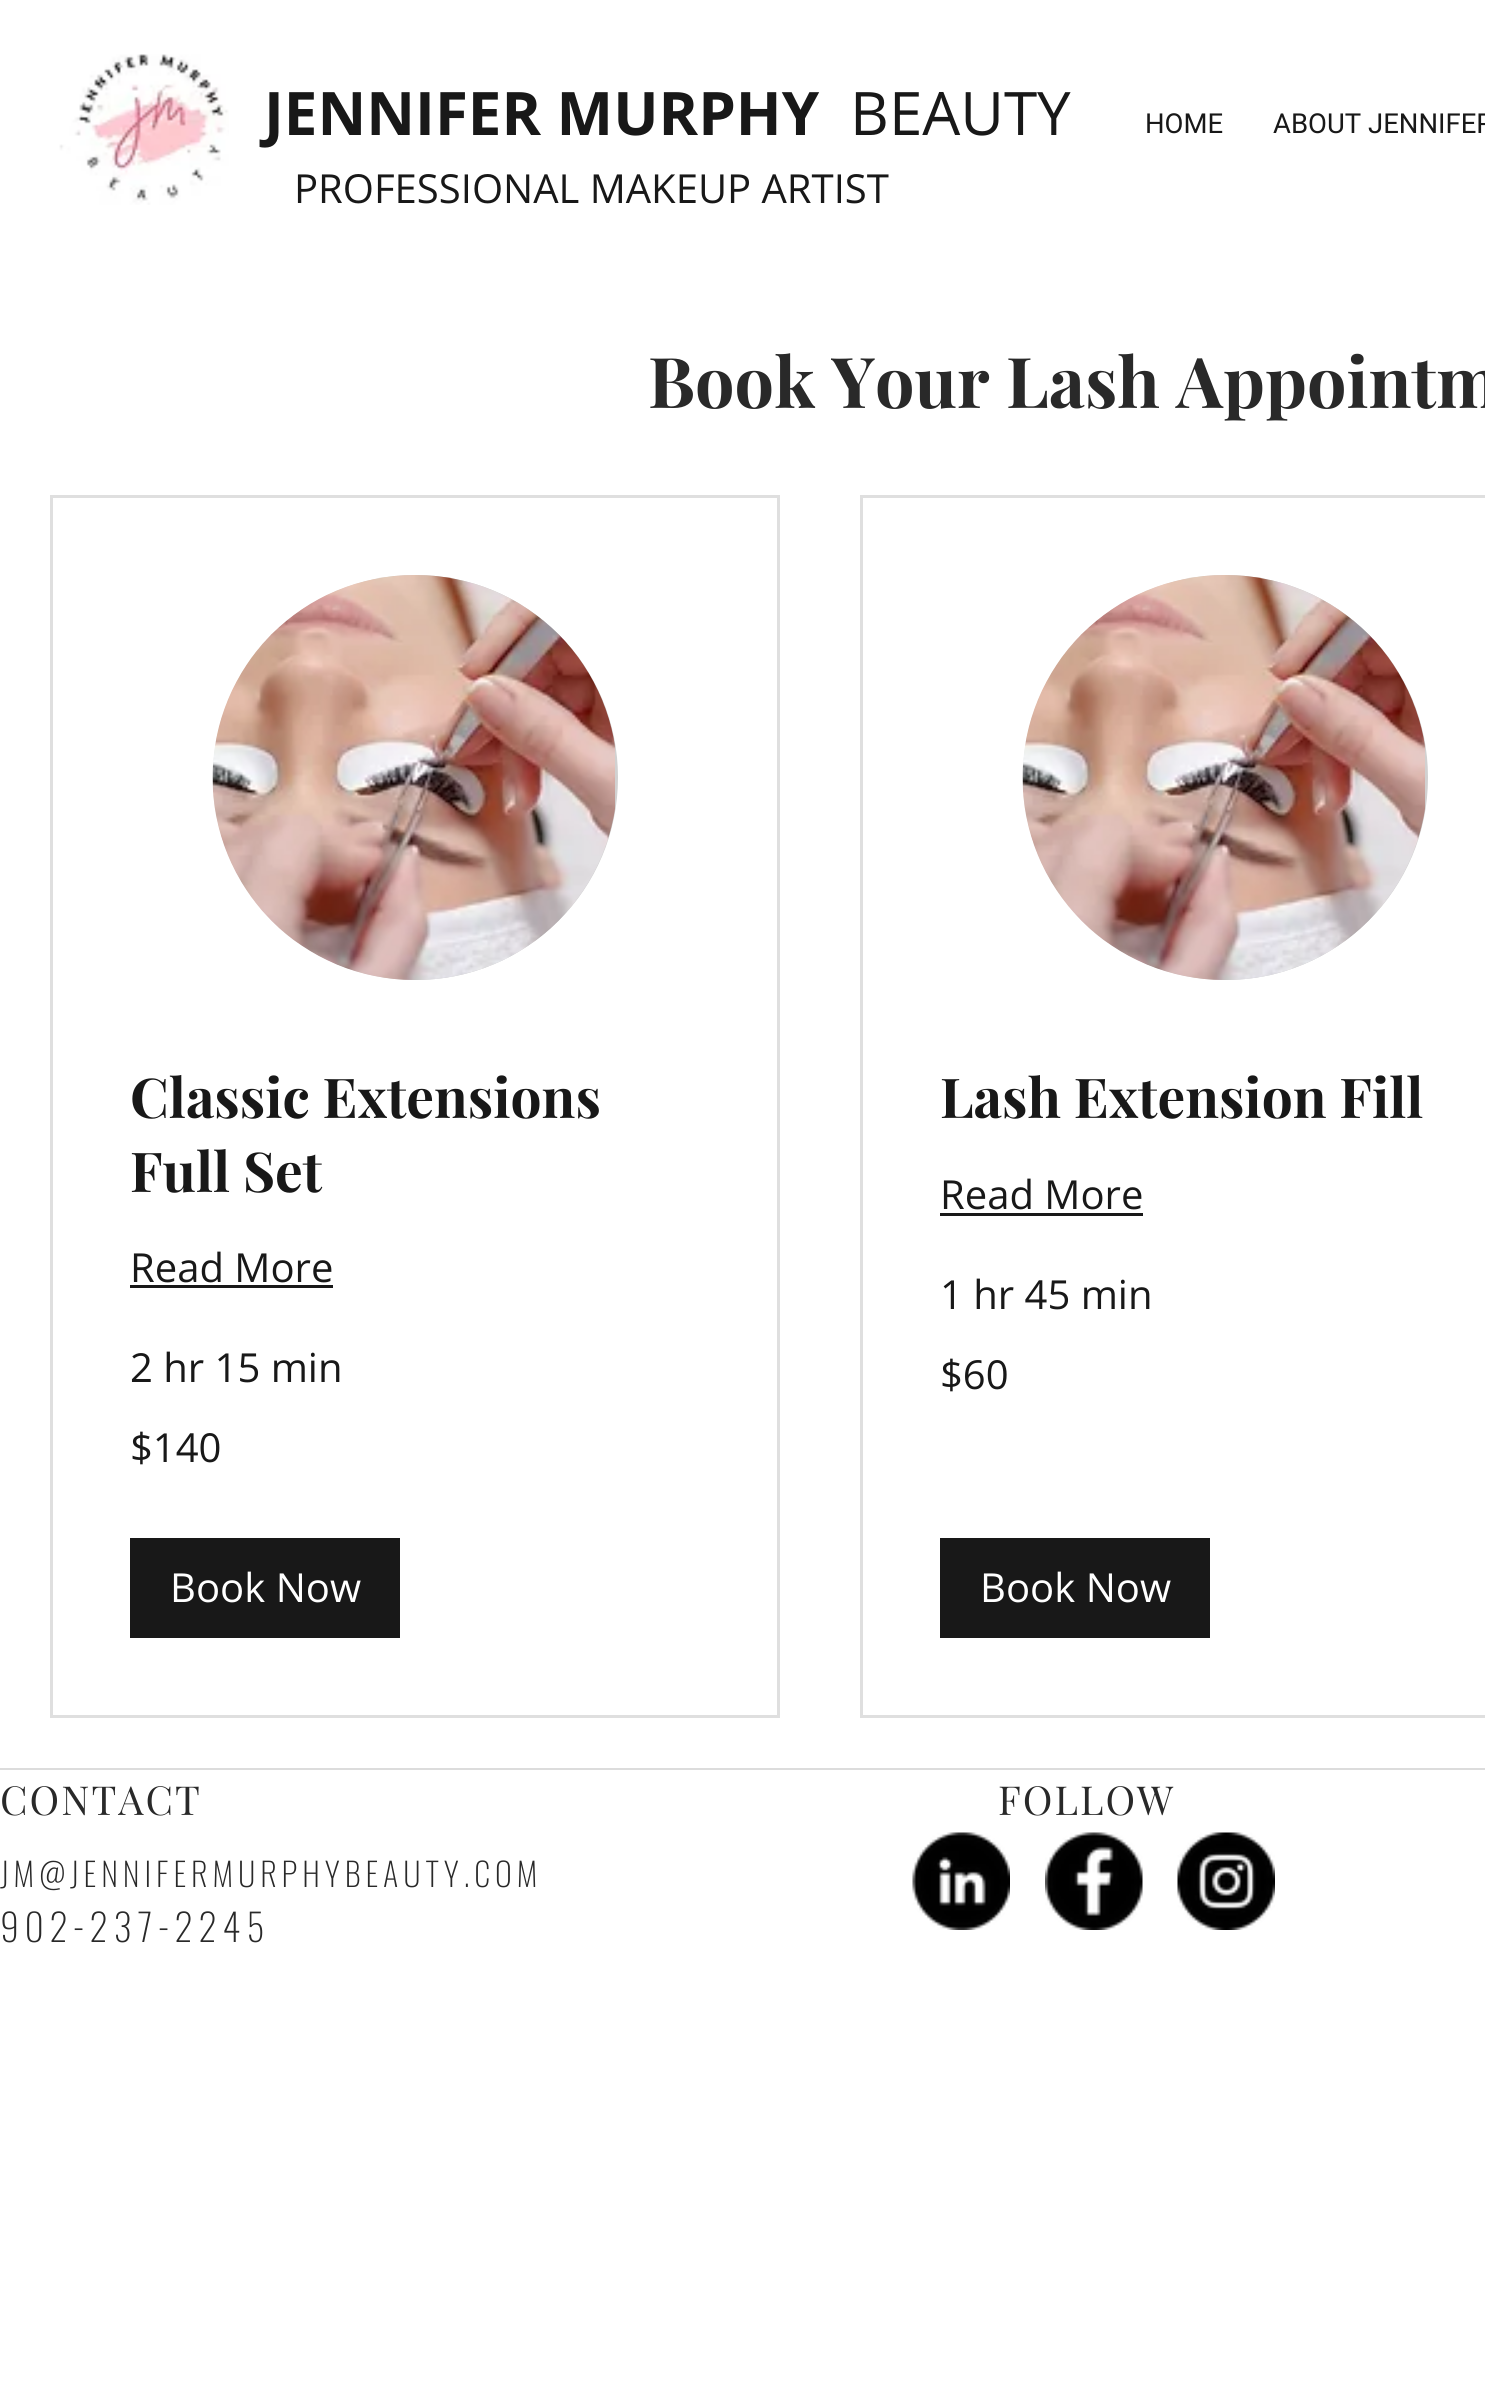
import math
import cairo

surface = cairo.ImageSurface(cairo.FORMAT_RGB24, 1485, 2388)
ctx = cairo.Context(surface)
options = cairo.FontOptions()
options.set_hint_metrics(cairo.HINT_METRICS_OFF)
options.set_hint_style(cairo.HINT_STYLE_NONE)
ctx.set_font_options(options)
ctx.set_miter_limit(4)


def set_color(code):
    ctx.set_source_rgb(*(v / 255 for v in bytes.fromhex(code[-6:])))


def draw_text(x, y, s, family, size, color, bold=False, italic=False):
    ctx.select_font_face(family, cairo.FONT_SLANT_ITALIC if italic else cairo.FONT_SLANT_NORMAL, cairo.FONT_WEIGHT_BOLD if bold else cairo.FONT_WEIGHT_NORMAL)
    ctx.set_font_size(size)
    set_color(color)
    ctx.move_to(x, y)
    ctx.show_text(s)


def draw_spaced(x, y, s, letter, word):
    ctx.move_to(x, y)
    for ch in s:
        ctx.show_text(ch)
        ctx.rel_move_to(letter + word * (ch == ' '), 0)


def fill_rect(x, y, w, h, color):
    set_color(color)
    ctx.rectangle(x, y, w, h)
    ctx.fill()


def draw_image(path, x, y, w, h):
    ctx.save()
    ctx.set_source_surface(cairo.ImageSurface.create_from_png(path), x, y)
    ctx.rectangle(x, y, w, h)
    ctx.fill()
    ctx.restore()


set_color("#ffffff")
ctx.paint()
draw_image("assets/img1.png", 59, 54, 170, 151)
draw_text(264, 135, "JENNIFER MURPHY", "Open Sans", 60, "#181818", bold=True)
draw_text(850, 135, "BEAUTY", "Open Sans", 60, "#181818")
draw_text(1145, 133, "HOME", "Roboto", 27.5, "#181818")
draw_text(1273, 133, "ABOUT JENNIFER", "Roboto", 27.5, "#181818")
draw_text(294, 203, "PROFESSIONAL MAKEUP ARTIST", "Open Sans", 40, "#181818")
draw_text(648, 408, "Book Your Lash Appointm", "Playfair Display", 70, "#292929", bold=True)
ctx.rectangle(51.5, 496.5, 727, 1220)
set_color("#dfdfdf")
ctx.set_line_width(3)
ctx.stroke()
set_color("#d1d1d1")
ctx.arc(415.5, 777.5, 202.5, 0, 2 * math.pi)
ctx.fill()
draw_image("assets/img2.png", 212, 575, 403, 405)
draw_text(130, 1118, "Classic Extensions", "Playfair Display", 55, "#181818", bold=True)
draw_text(130, 1192, "Full Set", "Playfair Display", 55, "#181818", bold=True)
draw_text(130, 1282, "Read More", "Open Sans", 40, "#181818")
fill_rect(130, 1285, 203, 3, "#181818")
draw_text(130, 1382, "2 hr 15 min", "Open Sans", 40, "#181818")
draw_text(130, 1462, "$140", "Open Sans", 40, "#181818")
fill_rect(130, 1538, 270, 100, "#181818")
draw_text(170, 1602, "Book Now", "Open Sans", 40, "#ffffff")
ctx.rectangle(861.5, 496.5, 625, 1220)
set_color("#dfdfdf")
ctx.stroke()
set_color("#d1d1d1")
ctx.arc(1225.5, 777.5, 202.5, 0, 2 * math.pi)
ctx.fill()
draw_image("assets/img3.png", 1022, 575, 403, 405)
draw_text(940, 1118, "Lash Extension Fill", "Playfair Display", 55, "#181818", bold=True)
draw_text(940, 1209, "Read More", "Open Sans", 40, "#181818")
fill_rect(940, 1213, 203, 3, "#181818")
draw_text(940, 1309, "1 hr 45 min", "Open Sans", 40, "#181818")
draw_text(940, 1389, "$60", "Open Sans", 40, "#181818")
fill_rect(940, 1538, 270, 100, "#181818")
draw_text(980, 1602, "Book Now", "Open Sans", 40, "#ffffff")
fill_rect(0, 1768, 1485, 2, "#dcdcdc")
ctx.select_font_face("Playfair Display")
set_color("#292929")
draw_spaced(0, 1815, "CONTACT", 2, 0)
draw_spaced(998, 1815, "FOLLOW", 2, 0)
ctx.select_font_face("Oswald ExtraLight")
ctx.set_font_size(32.5)
draw_spaced(0, 1887, "JM@JENNIFERMURPHYBEAUTY.COM", 4.9, 0)
draw_image("assets/img4.png", 912, 1832, 98, 98)
draw_image("assets/img5.png", 1045, 1832, 98, 98)
draw_image("assets/img6.png", 1177, 1832, 98, 98)
ctx.set_font_size(37.5)
draw_spaced(0, 1942, "902-237-2245", 5.6, 0)
surface.write_to_png("output.png")
